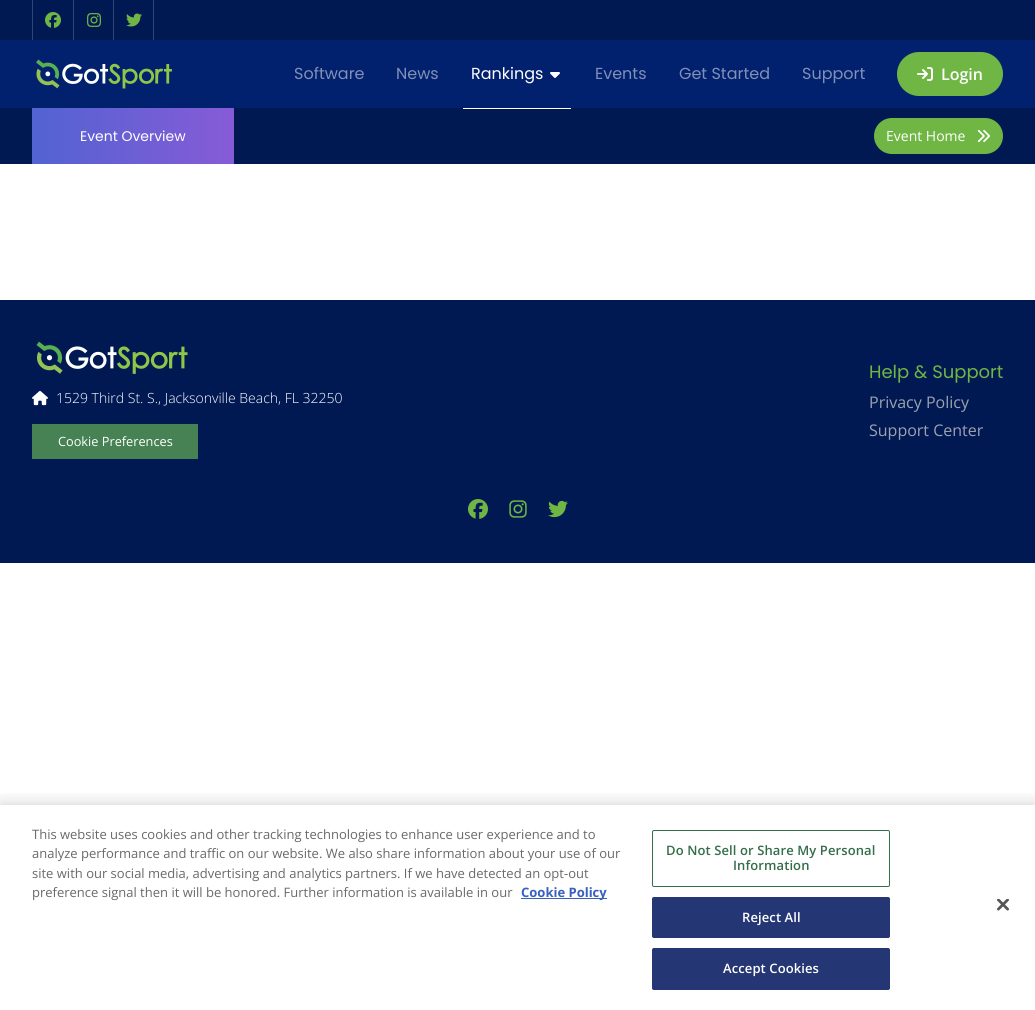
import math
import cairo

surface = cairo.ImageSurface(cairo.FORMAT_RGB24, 1035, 1010)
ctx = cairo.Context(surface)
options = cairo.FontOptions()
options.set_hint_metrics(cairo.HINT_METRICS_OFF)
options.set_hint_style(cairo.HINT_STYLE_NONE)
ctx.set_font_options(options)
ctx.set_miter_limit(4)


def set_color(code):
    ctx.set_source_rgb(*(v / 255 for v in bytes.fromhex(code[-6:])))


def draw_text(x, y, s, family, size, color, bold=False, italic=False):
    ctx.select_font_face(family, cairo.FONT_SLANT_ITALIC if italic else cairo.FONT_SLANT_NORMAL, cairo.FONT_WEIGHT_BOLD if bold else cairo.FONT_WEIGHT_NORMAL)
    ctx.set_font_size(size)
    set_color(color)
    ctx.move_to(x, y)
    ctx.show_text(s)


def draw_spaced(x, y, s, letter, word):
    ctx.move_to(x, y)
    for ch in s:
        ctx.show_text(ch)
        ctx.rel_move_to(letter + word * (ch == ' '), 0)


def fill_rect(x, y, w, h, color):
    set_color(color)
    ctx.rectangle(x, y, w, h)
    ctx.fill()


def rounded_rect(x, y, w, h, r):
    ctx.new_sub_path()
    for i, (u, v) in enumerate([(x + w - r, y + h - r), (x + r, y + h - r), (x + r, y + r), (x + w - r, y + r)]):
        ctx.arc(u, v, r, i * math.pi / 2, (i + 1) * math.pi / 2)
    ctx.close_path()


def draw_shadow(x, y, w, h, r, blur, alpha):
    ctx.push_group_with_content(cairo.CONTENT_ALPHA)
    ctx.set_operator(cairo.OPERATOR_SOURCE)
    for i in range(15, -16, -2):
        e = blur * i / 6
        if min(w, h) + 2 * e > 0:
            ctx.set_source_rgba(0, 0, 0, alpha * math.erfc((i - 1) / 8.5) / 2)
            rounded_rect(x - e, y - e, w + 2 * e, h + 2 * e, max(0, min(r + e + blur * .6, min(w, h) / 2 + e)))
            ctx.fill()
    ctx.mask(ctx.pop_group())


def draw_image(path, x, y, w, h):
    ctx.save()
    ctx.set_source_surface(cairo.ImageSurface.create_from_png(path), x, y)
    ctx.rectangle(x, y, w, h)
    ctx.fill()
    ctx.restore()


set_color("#ffffff")
ctx.paint()
fill_rect(0, 0, 1035, 40, "#011953")
fill_rect(153, 0, 1, 40, "#314574")
fill_rect(32, 0, 1, 40, "#314574")
draw_image("assets/img1.png", 45, 12, 16, 16)
fill_rect(73, 0, 1, 40, "#314574")
draw_image("assets/img2.png", 87, 13, 14, 14)
fill_rect(113, 0, 1, 40, "#314574")
draw_image("assets/img3.png", 126, 13, 16, 14)
fill_rect(0, 40, 1035, 68, "#01206e")
draw_image("assets/img4.png", 36, 59, 136, 30)
draw_text(294, 79, "Software", "Poppins", 16, "#8090b7")
draw_text(396, 79, "News", "Poppins", 16, "#8090b7")
fill_rect(0, 108, 1035, 56, "#011953")
fill_rect(463, 108, 108, 1, "#ffffff")
draw_text(471, 79, "Rankings", "Poppins", 16, "#ffffff")
draw_image("assets/img5.png", 550, 72, 10, 6)
draw_text(595, 79, "Events", "Poppins", 16, "#8090b7")
draw_text(679, 79, "Get Started", "Poppins", 16, "#8090b7")
draw_text(802, 79, "Support", "Poppins", 16, "#8090b7")
set_color("#70b645")
rounded_rect(897, 52, 106, 44, 22)
ctx.fill()
draw_image("assets/img6.png", 917, 67, 16, 14)
draw_text(941, 80, "Login", "Open Sans SemiBold", 16, "#ffffff")
gradient = cairo.LinearGradient(32, 136, 234, 136)
gradient.add_color_stop_rgba(0, 0.322, 0.388, 0.824, 1)
gradient.add_color_stop_rgba(1, 0.529, 0.357, 0.843, 1)
ctx.set_source(gradient)
ctx.rectangle(32, 108, 202, 56)
ctx.fill()
draw_text(80, 141, "Event Overview", "Poppins", 14, "#ffffff")
set_color("#70b645")
rounded_rect(874, 118, 129, 36, 18)
ctx.fill()
draw_text(886, 141, "Event Home", "Open Sans", 14, "#ffffff")
draw_image("assets/img7.png", 977, 129, 13, 14)
fill_rect(0, 300, 1035, 263, "#011953")
draw_image("assets/img8.png", 36, 341, 152, 33)
draw_image("assets/img9.png", 32, 390, 16, 16)
draw_text(56, 403, "1529 Third St. S., Jacksonville Beach, FL 32250", "Open Sans Light", 14, "#ffffff")
fill_rect(32, 424, 166, 35, "#468254")
draw_text(58, 446, "Cookie Preferences", "Open Sans", 12.75, "#ffffff")
draw_text(869, 378, "Help & Support", "Poppins", 18, "#70b645")
draw_text(869, 408, "Privacy Policy", "Open Sans", 16, "#9ca3af")
draw_text(869, 436, "Support Center", "Open Sans", 16, "#9ca3af")
draw_image("assets/img10.png", 468, 499, 20, 20)
draw_image("assets/img11.png", 509, 500, 18, 18)
draw_image("assets/img12.png", 548, 500, 20, 18)
ctx.save()
ctx.rectangle(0, 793, 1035, 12)
ctx.clip()
set_color("#000000")
draw_shadow(0, 805, 1035, 205, 0, 9, 0.2)
ctx.restore()
draw_text(32, 839, "This website uses cookies and other tracking technologies to enhance user experience and to", "Open Sans", 13, "#696969")
draw_text(32, 858, "analyze performance and traffic on our website. We also share information about your use of our", "Open Sans", 13, "#696969")
draw_text(32, 878, "site with our social media, advertising and analytics partners. If we have detected an opt-out", "Open Sans", 13, "#696969")
draw_text(32, 897, "preference signal then it will be honored. Further information is available in our", "Open Sans", 13, "#696969")
fill_rect(521, 898, 86, 1, "#3860be")
draw_text(521, 897, "Cookie Policy", "Open Sans", 13, "#3860be", bold=True)
rounded_rect(652.5, 830.5, 237, 56, 1.5)
set_color("#346e4a")
ctx.set_line_width(1)
ctx.stroke()
ctx.select_font_face("Open Sans SemiBold")
draw_spaced(666, 855, "Do Not Sell or Share My Personal", 0.1, 0)
draw_spaced(733, 870, "Information", 0.1, 0)
set_color("#243674")
rounded_rect(652.5, 897.5, 237, 40, 1.5)
ctx.fill_preserve()
ctx.stroke()
set_color("#ffffff")
draw_spaced(742, 922, "Reject All", 0.1, 0)
set_color("#243674")
rounded_rect(652.5, 948.5, 237, 41, 1.5)
ctx.fill_preserve()
ctx.stroke()
set_color("#ffffff")
draw_spaced(723, 973, "Accept Cookies", 0.1, 0)
draw_image("assets/img13.png", 997, 899, 12, 12)
surface.write_to_png("output.png")
